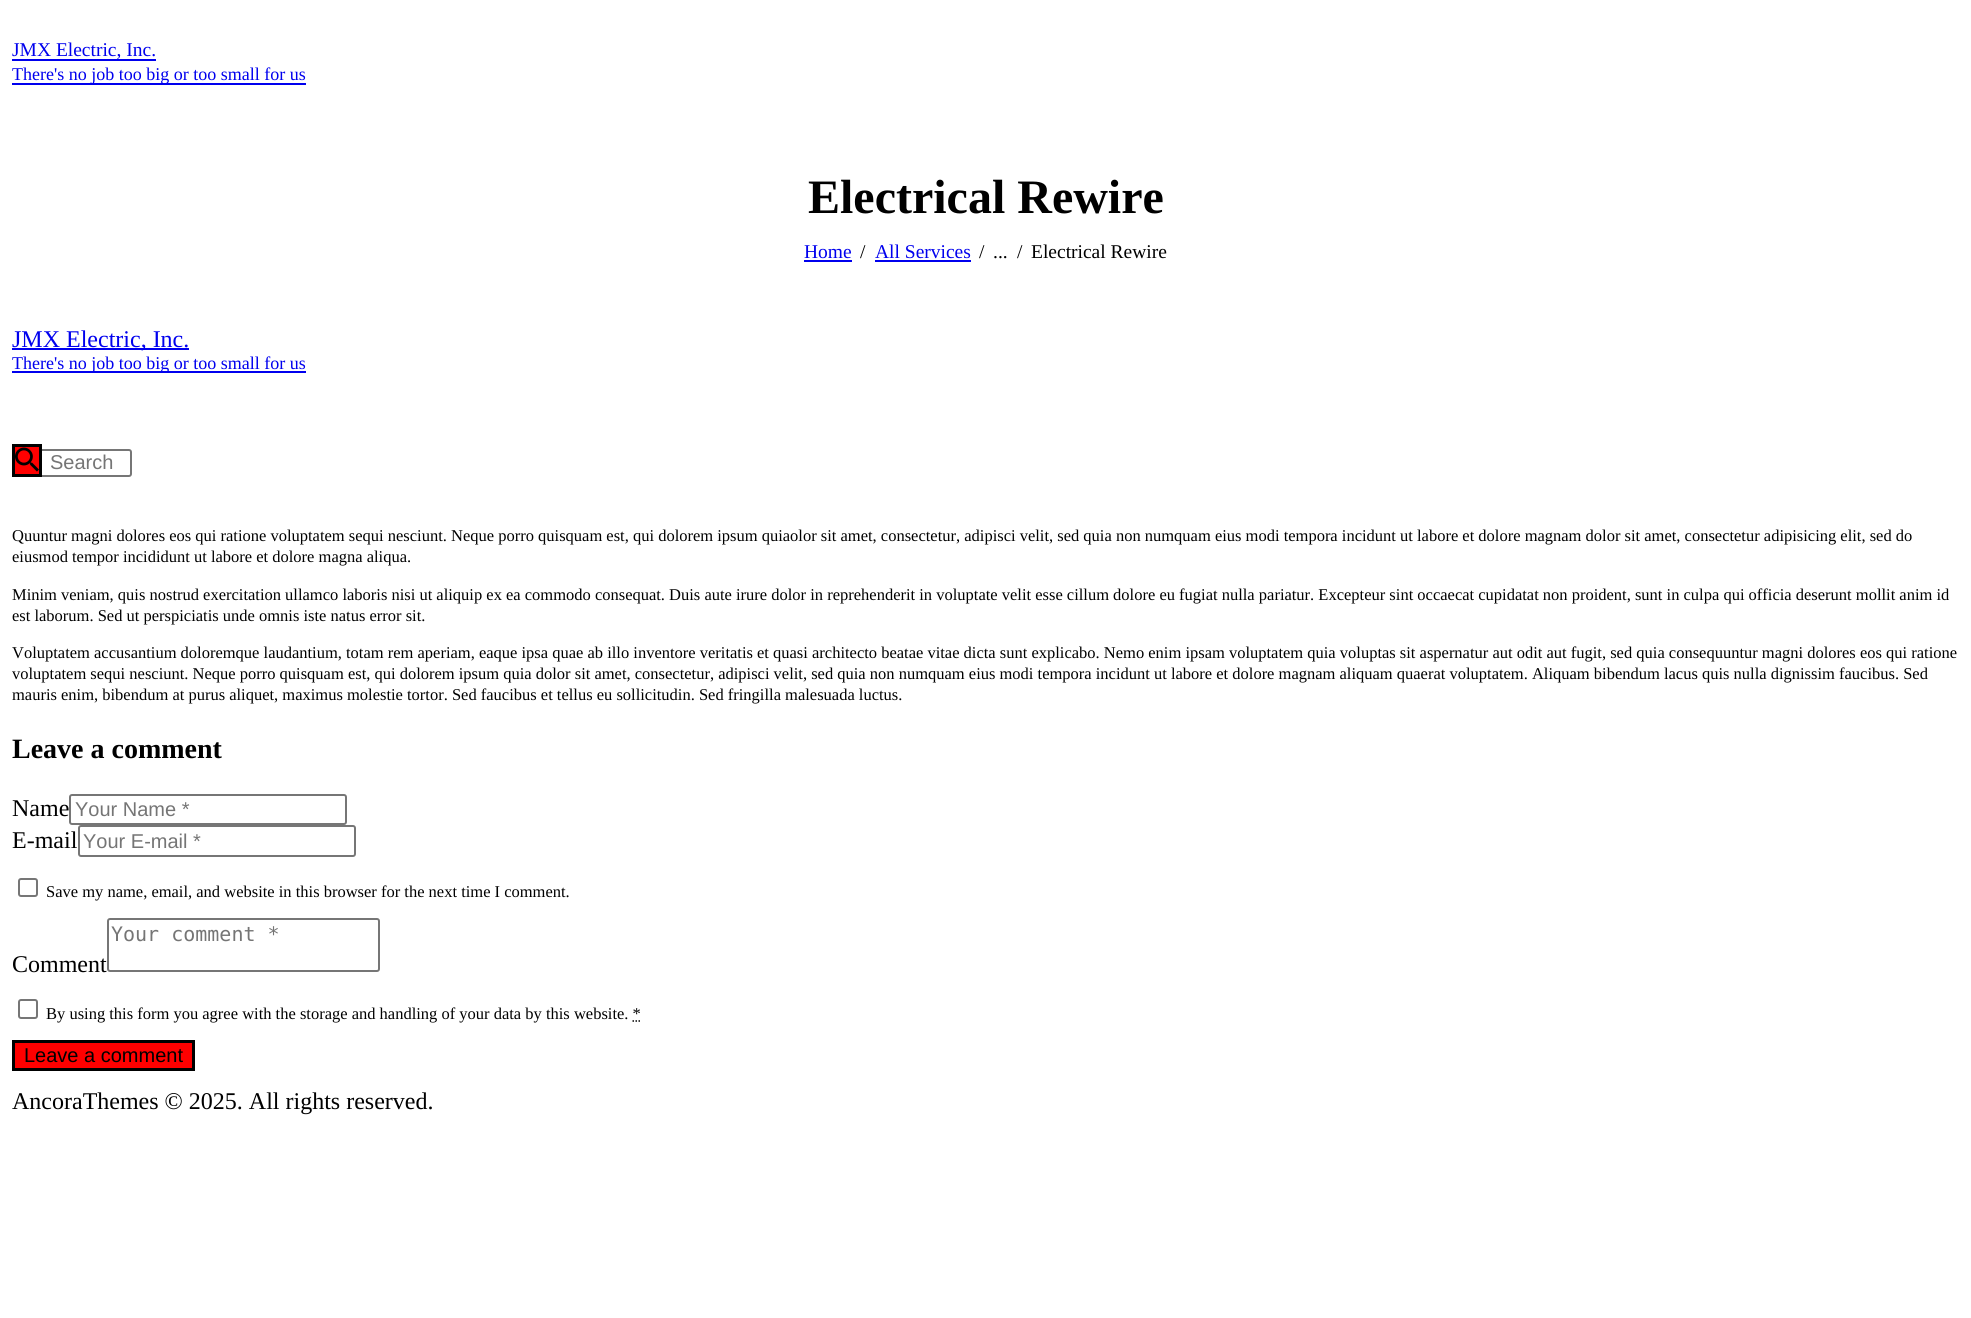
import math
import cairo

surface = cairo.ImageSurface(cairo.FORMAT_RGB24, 1971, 1318)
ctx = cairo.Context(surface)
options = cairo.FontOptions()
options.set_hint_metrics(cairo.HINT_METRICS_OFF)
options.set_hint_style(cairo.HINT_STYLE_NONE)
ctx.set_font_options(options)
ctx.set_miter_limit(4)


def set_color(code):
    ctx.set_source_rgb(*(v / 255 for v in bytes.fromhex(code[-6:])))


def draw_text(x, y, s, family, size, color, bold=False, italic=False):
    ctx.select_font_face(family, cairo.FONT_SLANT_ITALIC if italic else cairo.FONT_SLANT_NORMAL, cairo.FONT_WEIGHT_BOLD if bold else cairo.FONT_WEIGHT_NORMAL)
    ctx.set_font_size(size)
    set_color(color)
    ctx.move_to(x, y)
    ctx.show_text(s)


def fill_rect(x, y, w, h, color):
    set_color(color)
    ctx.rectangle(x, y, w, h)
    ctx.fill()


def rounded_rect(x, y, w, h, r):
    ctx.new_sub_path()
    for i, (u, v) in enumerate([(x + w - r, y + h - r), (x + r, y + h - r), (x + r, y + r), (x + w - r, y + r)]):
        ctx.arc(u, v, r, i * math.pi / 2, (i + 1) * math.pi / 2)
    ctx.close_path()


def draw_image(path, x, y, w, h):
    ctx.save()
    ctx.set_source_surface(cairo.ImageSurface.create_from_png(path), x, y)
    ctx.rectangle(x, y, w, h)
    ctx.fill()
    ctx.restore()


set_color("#ffffff")
ctx.paint()
draw_text(12, 56, "JMX Electric, Inc.", "Liberation Serif", 19.5, "#0000ee")
fill_rect(12, 59, 144, 2, "#0000ee")
fill_rect(12, 83, 294, 2, "#0000ee")
draw_text(12, 80, "There's no job too big or too small for us", "Liberation Serif", 18, "#0000ee")
draw_text(808, 213, "Electrical Rewire", "Liberation Serif", 48, "#000000", bold=True)
draw_text(804, 258, "Home", "Liberation Serif", 19.5, "#0000ee")
fill_rect(804, 260, 48, 2, "#0000ee")
draw_text(860, 258, "/", "Liberation Serif", 19.5, "#000000")
draw_text(875, 258, "All Services", "Liberation Serif", 19.5, "#0000ee")
fill_rect(875, 260, 96, 2, "#0000ee")
draw_text(979, 258, "/", "Liberation Serif", 19.5, "#000000")
draw_text(993, 258, "...", "Liberation Serif", 19.5, "#000000")
draw_text(1017, 258, "/", "Liberation Serif", 19.5, "#000000")
draw_text(1031, 258, "Electrical Rewire", "Liberation Serif", 19.5, "#000000")
fill_rect(12, 348, 177, 2, "#0000ee")
draw_text(12, 347, "JMX Electric, Inc.", "Liberation Serif", 24, "#0000ee")
fill_rect(12, 371, 294, 2, "#0000ee")
draw_text(12, 369, "There's no job too big or too small for us", "Liberation Serif", 18, "#0000ee")
rounded_rect(13, 450, 118, 26, 2)
set_color("#767676")
ctx.stroke()
set_color("#ff0000")
ctx.rectangle(13.5, 445.5, 27, 30)
ctx.fill_preserve()
set_color("#000000")
ctx.set_line_width(3)
ctx.stroke()
draw_image("assets/img1.png", 15, 447, 24, 25)
draw_text(50, 469, "Search", "Liberation Sans", 20, "#757575")
draw_text(12, 541, "Quuntur magni dolores eos qui ratione voluptatem sequi nesciunt. Neque porro quisquam est, qui dolorem ipsum quiaolor sit amet, consectetur, adipisci velit, sed quia non numquam eius modi tempora incidunt ut labore et dolore magnam dolor sit amet, consectetur adipisicing elit, sed do", "Liberation Serif", 16.5, "#000000")
draw_text(12, 562, "eiusmod tempor incididunt ut labore et dolore magna aliqua.", "Liberation Serif", 16.5, "#000000")
draw_text(12, 600, "Minim veniam, quis nostrud exercitation ullamco laboris nisi ut aliquip ex ea commodo consequat. Duis aute irure dolor in reprehenderit in voluptate velit esse cillum dolore eu fugiat nulla pariatur. Excepteur sint occaecat cupidatat non proident, sunt in culpa qui officia deserunt mollit anim id", "Liberation Serif", 16.5, "#000000")
draw_text(12, 621, "est laborum. Sed ut perspiciatis unde omnis iste natus error sit.", "Liberation Serif", 16.5, "#000000")
draw_text(12, 658, "Voluptatem accusantium doloremque laudantium, totam rem aperiam, eaque ipsa quae ab illo inventore veritatis et quasi architecto beatae vitae dicta sunt explicabo. Nemo enim ipsam voluptatem quia voluptas sit aspernatur aut odit aut fugit, sed quia consequuntur magni dolores eos qui ratione", "Liberation Serif", 16.5, "#000000")
draw_text(12, 679, "voluptatem sequi nesciunt. Neque porro quisquam est, qui dolorem ipsum quia dolor sit amet, consectetur, adipisci velit, sed quia non numquam eius modi tempora incidunt ut labore et dolore magnam aliquam quaerat voluptatem. Aliquam bibendum lacus quis nulla dignissim faucibus. Sed", "Liberation Serif", 16.5, "#000000")
draw_text(12, 700, "mauris enim, bibendum at purus aliquet, maximus molestie tortor. Sed faucibus et tellus eu sollicitudin. Sed fringilla malesuada luctus.", "Liberation Serif", 16.5, "#000000")
draw_text(12, 758, "Leave a comment", "Liberation Serif", 28, "#000000", bold=True)
draw_text(12, 816, "Name", "Liberation Serif", 24, "#000000")
rounded_rect(70, 795, 276, 29, 2)
set_color("#767676")
ctx.set_line_width(2)
ctx.stroke()
draw_text(75, 816, "Your Name *", "Liberation Sans", 20, "#757575")
draw_text(12, 848, "E-mail", "Liberation Serif", 24, "#000000")
rounded_rect(79, 826, 276, 30, 2)
set_color("#767676")
ctx.stroke()
draw_text(83, 848, "Your E-mail *", "Liberation Sans", 20, "#757575")
rounded_rect(19, 879, 18, 17, 2)
set_color("#767676")
ctx.stroke()
draw_text(46, 897, "Save my name, email, and website in this browser for the next time I comment.", "Liberation Serif", 16.5, "#000000")
rounded_rect(108, 919, 271, 52, 2)
set_color("#767676")
ctx.stroke()
draw_text(111, 941, "Your comment *", "DejaVu Sans Mono", 20, "#757575")
draw_text(12, 972, "Comment", "Liberation Serif", 24, "#000000")
rounded_rect(19, 1000, 18, 18, 2)
set_color("#767676")
ctx.stroke()
draw_text(46, 1019, "By using this form you agree with the storage and handling of your data by this website. *", "Liberation Serif", 16.5, "#000000")
ctx.new_path()
ctx.move_to(632.5, 1021)
ctx.line_to(634, 1021)
ctx.move_to(635.5, 1021)
ctx.line_to(637, 1021)
ctx.move_to(638.5, 1021)
ctx.line_to(640, 1021)
ctx.set_line_width(1.5)
ctx.stroke()
set_color("#ff0000")
ctx.rectangle(13.5, 1041.5, 180, 28)
ctx.fill_preserve()
set_color("#000000")
ctx.set_line_width(3)
ctx.stroke()
draw_text(24, 1062, "Leave a comment", "Liberation Sans", 20, "#000000")
draw_text(12, 1109, "AncoraThemes © 2025. All rights reserved.", "Liberation Serif", 24, "#000000")
surface.write_to_png("output.png")
